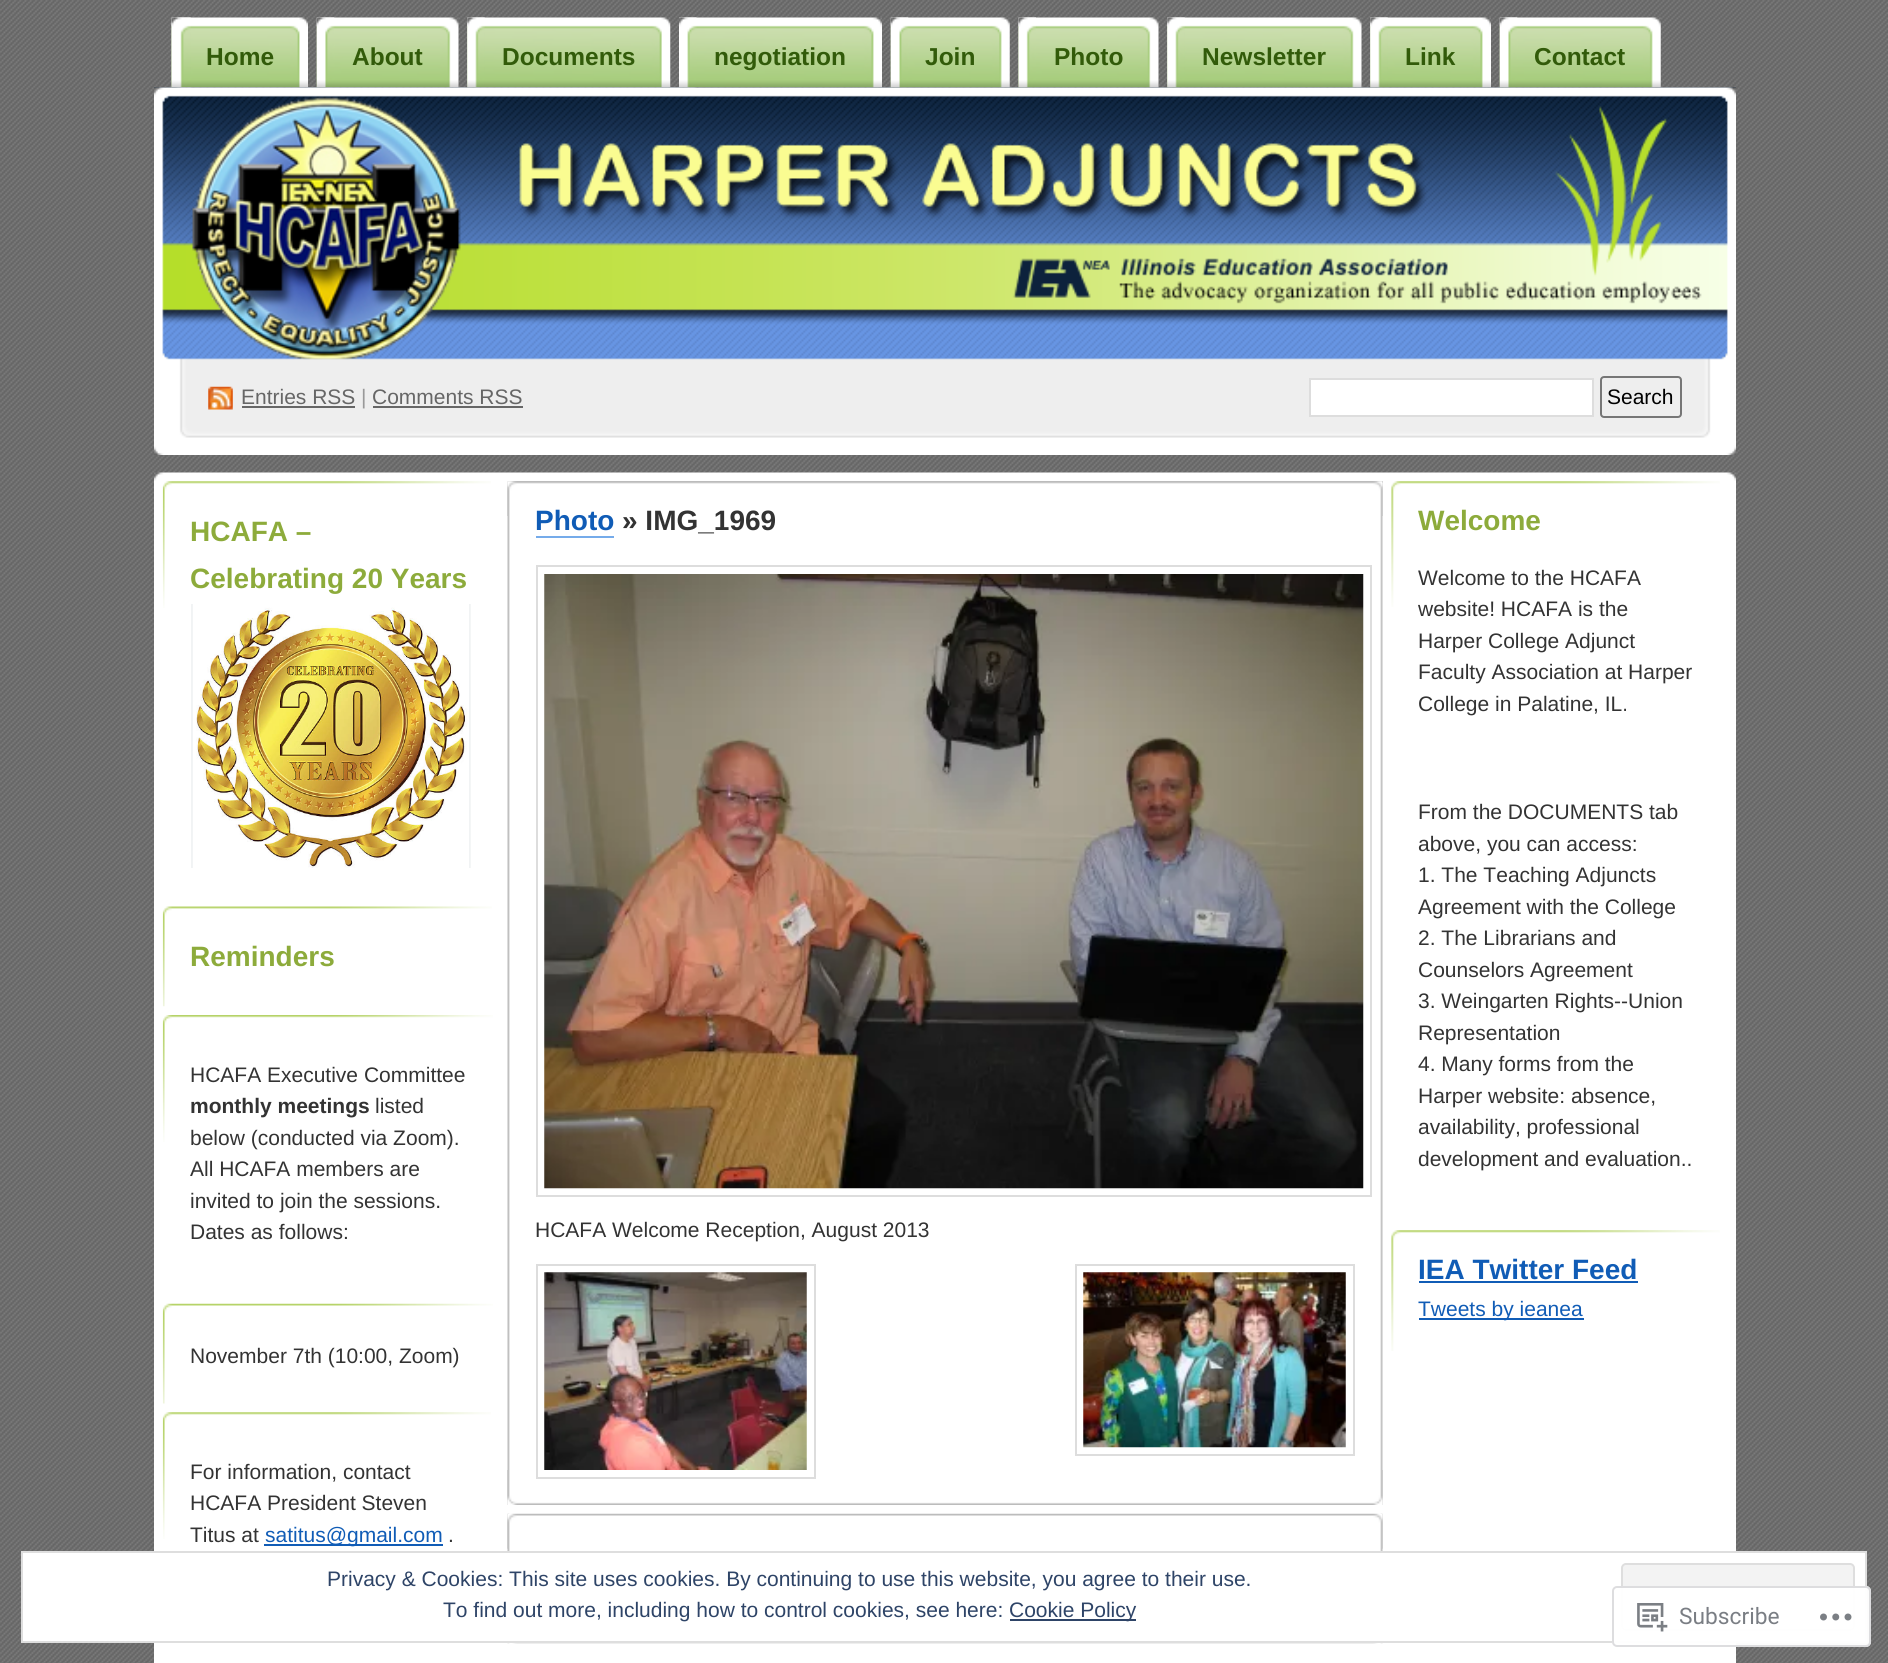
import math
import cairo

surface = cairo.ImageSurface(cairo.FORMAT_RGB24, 1888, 1663)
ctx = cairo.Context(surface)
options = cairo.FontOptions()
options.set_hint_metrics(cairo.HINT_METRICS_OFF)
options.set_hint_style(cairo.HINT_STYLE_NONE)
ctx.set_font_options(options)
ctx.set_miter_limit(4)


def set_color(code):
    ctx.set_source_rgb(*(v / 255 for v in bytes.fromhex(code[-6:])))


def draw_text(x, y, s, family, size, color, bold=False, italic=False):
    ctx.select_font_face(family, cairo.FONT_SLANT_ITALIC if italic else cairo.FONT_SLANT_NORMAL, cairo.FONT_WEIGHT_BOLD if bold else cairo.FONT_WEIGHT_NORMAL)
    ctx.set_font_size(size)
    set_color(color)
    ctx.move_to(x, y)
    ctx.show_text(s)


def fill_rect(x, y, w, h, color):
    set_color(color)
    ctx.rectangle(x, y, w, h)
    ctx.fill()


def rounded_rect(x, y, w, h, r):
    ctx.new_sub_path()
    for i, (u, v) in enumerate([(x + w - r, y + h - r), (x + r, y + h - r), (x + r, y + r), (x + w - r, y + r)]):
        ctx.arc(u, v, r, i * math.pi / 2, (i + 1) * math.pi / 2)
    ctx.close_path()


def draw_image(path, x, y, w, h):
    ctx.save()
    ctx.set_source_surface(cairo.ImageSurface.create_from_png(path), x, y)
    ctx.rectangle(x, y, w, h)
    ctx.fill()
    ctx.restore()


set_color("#ffffff")
ctx.paint()
draw_image("assets/img1.png", 0, 0, 1888, 1663)
draw_image("assets/img2.png", 171, 17, 137, 71)
draw_image("assets/img3.png", 171, 17, 20, 71)
draw_text(206, 65, "Home", "Liberation Sans", 24.5, "#325b0a", bold=True)
draw_image("assets/img4.png", 316, 17, 143, 71)
draw_image("assets/img5.png", 316, 17, 19, 71)
draw_text(352, 65, "About", "Liberation Sans", 24.5, "#325b0a", bold=True)
draw_image("assets/img6.png", 467, 17, 204, 71)
draw_image("assets/img7.png", 467, 17, 18, 71)
draw_text(502, 65, "Documents", "Liberation Sans", 24.5, "#325b0a", bold=True)
draw_image("assets/img8.png", 679, 17, 203, 71)
draw_image("assets/img9.png", 679, 17, 18, 71)
draw_text(714, 65, "negotiation", "Liberation Sans", 24.5, "#325b0a", bold=True)
draw_image("assets/img10.png", 890, 17, 120, 71)
draw_image("assets/img11.png", 890, 17, 19, 71)
draw_text(925, 65, "Join", "Liberation Sans", 24.5, "#325b0a", bold=True)
draw_image("assets/img12.png", 1018, 17, 141, 71)
draw_image("assets/img13.png", 1018, 17, 18, 71)
draw_text(1054, 65, "Photo", "Liberation Sans", 24.5, "#325b0a", bold=True)
draw_image("assets/img14.png", 1167, 17, 195, 71)
draw_image("assets/img15.png", 1167, 17, 18, 71)
draw_text(1202, 65, "Newsletter", "Liberation Sans", 24.5, "#325b0a", bold=True)
draw_image("assets/img16.png", 1370, 17, 121, 71)
draw_image("assets/img17.png", 1370, 17, 18, 71)
draw_text(1405, 65, "Link", "Liberation Sans", 24.5, "#325b0a", bold=True)
draw_image("assets/img18.png", 1499, 17, 162, 71)
draw_image("assets/img19.png", 1499, 17, 19, 71)
draw_text(1534, 65, "Contact", "Liberation Sans", 24.5, "#325b0a", bold=True)
draw_image("assets/img20.png", 171, 87, 529, 1)
draw_image("assets/img21.png", 171, 87, 20, 1)
draw_image("assets/img22.png", 154, 87, 1582, 273)
draw_image("assets/img23.png", 154, 87, 1582, 368)
draw_image("assets/img24.png", 208, 386, 25, 24)
draw_text(241, 404, "Entries RSS", "Liberation Sans", 21, "#666666")
fill_rect(242, 406, 113, 2, "#666666")
draw_text(361, 404, "|", "Liberation Sans", 21, "#999999")
draw_text(372, 404, "Comments RSS", "Liberation Sans", 21, "#666666")
fill_rect(373, 406, 150, 2, "#666666")
set_color("#ffffff")
ctx.rectangle(1310, 379, 283, 37)
ctx.fill_preserve()
set_color("#dddddd")
ctx.stroke()
rounded_rect(1601, 377, 80, 40, 3)
set_color("#767676")
ctx.stroke()
draw_text(1607, 404, "Search", "Liberation Sans", 21, "#000000")
fill_rect(154, 481, 1582, 1182, "#ffffff")
draw_image("assets/img25.png", 154, 472, 1582, 9)
draw_image("assets/img26.png", 162, 481, 329, 127)
draw_text(190, 541, "HCAFA –", "Liberation Sans", 28, "#8dab3b", bold=True)
draw_text(190, 588, "Celebrating 20 Years", "Liberation Sans", 28, "#8dab3b", bold=True)
draw_image("assets/img27.png", 191, 604, 280, 264)
draw_image("assets/img28.png", 162, 906, 330, 101)
draw_text(190, 966, "Reminders", "Liberation Sans", 28, "#8dab3b", bold=True)
draw_image("assets/img29.png", 162, 1015, 331, 127)
draw_text(190, 1082, "HCAFA Executive Committee", "Liberation Sans", 21, "#333333")
draw_text(190, 1113, "monthly meetings", "Liberation Sans", 21, "#333333", bold=True)
draw_text(375, 1113, "listed", "Liberation Sans", 21, "#333333")
draw_text(190, 1145, "below (conducted via Zoom).", "Liberation Sans", 21, "#333333")
draw_text(190, 1176, "All HCAFA members are", "Liberation Sans", 21, "#333333")
draw_text(190, 1208, "invited to join the sessions.", "Liberation Sans", 21, "#333333")
draw_text(190, 1239, "Dates as follows:", "Liberation Sans", 21, "#333333")
draw_image("assets/img30.png", 162, 1303, 331, 101)
draw_text(190, 1363, "November 7th (10:00, Zoom)", "Liberation Sans", 21, "#333333")
draw_image("assets/img26.png", 162, 1412, 329, 127)
draw_text(190, 1479, "For information, contact", "Liberation Sans", 21, "#333333")
draw_text(190, 1510, "HCAFA President Steven", "Liberation Sans", 21, "#333333")
draw_text(190, 1542, "Titus at", "Liberation Sans", 21, "#333333")
fill_rect(264, 1544, 179, 2, "#105cb6")
draw_text(265, 1542, "satitus@gmail.com", "Liberation Sans", 21, "#105cb6")
draw_text(448, 1542, ".", "Liberation Sans", 21, "#333333")
draw_image("assets/img31.png", 507, 481, 876, 1024)
draw_image("assets/img32.png", 507, 1470, 876, 35)
fill_rect(508, 481, 875, 2, "#bdbdbd")
draw_image("assets/img33.png", 507, 481, 876, 35)
draw_text(535, 530, "Photo", "Liberation Sans", 28, "#105cb6", bold=True)
fill_rect(536, 536, 78, 2, "#75abea")
draw_text(622, 530, "» IMG_1969", "Liberation Sans", 28, "#333333", bold=True)
ctx.rectangle(537, 566, 834, 630)
set_color("#dddddd")
ctx.stroke()
draw_image("assets/img34.png", 544, 574, 820, 615)
draw_text(535, 1237, "HCAFA Welcome Reception, August 2013", "Liberation Sans", 21, "#333333")
ctx.rectangle(537, 1265, 278, 213)
set_color("#dddddd")
ctx.stroke()
draw_image("assets/img35.png", 544, 1272, 263, 198)
ctx.rectangle(1076, 1265, 278, 190)
ctx.stroke()
draw_image("assets/img36.png", 1083, 1272, 263, 176)
draw_image("assets/img37.png", 507, 1513, 876, 131)
draw_image("assets/img38.png", 507, 1643, 876, 1)
draw_image("assets/img39.png", 507, 1513, 876, 36)
draw_image("assets/img40.png", 1391, 481, 329, 126)
draw_text(1418, 530, "Welcome", "Liberation Sans", 28, "#8dab3b", bold=True)
draw_text(1418, 585, "Welcome to the HCAFA", "Liberation Sans", 21, "#333333")
draw_text(1418, 616, "website! HCAFA is the", "Liberation Sans", 21, "#333333")
draw_text(1418, 648, "Harper College Adjunct", "Liberation Sans", 21, "#333333")
draw_text(1418, 679, "Faculty Association at Harper", "Liberation Sans", 21, "#333333")
draw_text(1418, 711, "College in Palatine, IL.", "Liberation Sans", 21, "#333333")
draw_text(1418, 819, "From the DOCUMENTS tab", "Liberation Sans", 21, "#333333")
draw_text(1418, 851, "above, you can access:", "Liberation Sans", 21, "#333333")
draw_text(1418, 882, "1. The Teaching Adjuncts", "Liberation Sans", 21, "#333333")
draw_text(1418, 914, "Agreement with the College", "Liberation Sans", 21, "#333333")
draw_text(1418, 945, "2. The Librarians and", "Liberation Sans", 21, "#333333")
draw_text(1418, 977, "Counselors Agreement", "Liberation Sans", 21, "#333333")
draw_text(1418, 1008, "3. Weingarten Rights--Union", "Liberation Sans", 21, "#333333")
draw_text(1418, 1040, "Representation", "Liberation Sans", 21, "#333333")
draw_text(1418, 1071, "4. Many forms from the", "Liberation Sans", 21, "#333333")
draw_text(1418, 1103, "Harper website: absence,", "Liberation Sans", 21, "#333333")
draw_text(1418, 1134, "availability, professional", "Liberation Sans", 21, "#333333")
draw_text(1418, 1166, "development and evaluation..", "Liberation Sans", 21, "#333333")
draw_image("assets/img41.png", 1391, 1230, 329, 121)
draw_text(1418, 1279, "IEA Twitter Feed", "Liberation Sans", 28, "#105cb6", bold=True)
fill_rect(1419, 1281, 219, 2, "#105cb6")
fill_rect(1419, 1318, 165, 2, "#105cb6")
draw_text(1418, 1316, "Tweets by ieanea", "Liberation Sans", 21, "#105cb6")
set_color("#ffffff")
ctx.rectangle(22, 1552, 1844, 90)
ctx.fill_preserve()
set_color("#dedede")
ctx.stroke()
draw_text(327, 1586, "Privacy & Cookies: This site uses cookies. By continuing to use this website, you agree to their use.", "Liberation Sans", 21, "#2e4467")
set_color("#f3f3f3")
rounded_rect(1622, 1564, 232, 66, 4)
ctx.fill_preserve()
set_color("#dedede")
ctx.stroke()
draw_text(443, 1617, "To find out more, including how to control cookies, see here:", "Liberation Sans", 21, "#2e4467")
fill_rect(1010, 1619, 126, 2, "#2e4467")
draw_text(1009, 1617, "Cookie Policy", "Liberation Sans", 21, "#2e4467")
ctx.set_source_rgba(1, 1, 1, 0.98)
rounded_rect(1612, 1586, 259, 61, 5)
ctx.fill()
rounded_rect(1613, 1587, 257, 59, 4)
ctx.set_source_rgba(0.863, 0.863, 0.871, 0.98)
ctx.stroke()
draw_image("assets/img42.png", 1637, 1603, 31, 29)
draw_text(1679, 1624, "Subscribe", "Roboto", 22.75, "#7a7e84")
draw_image("assets/img43.png", 1820, 1613, 32, 8)
surface.write_to_png("output.png")
